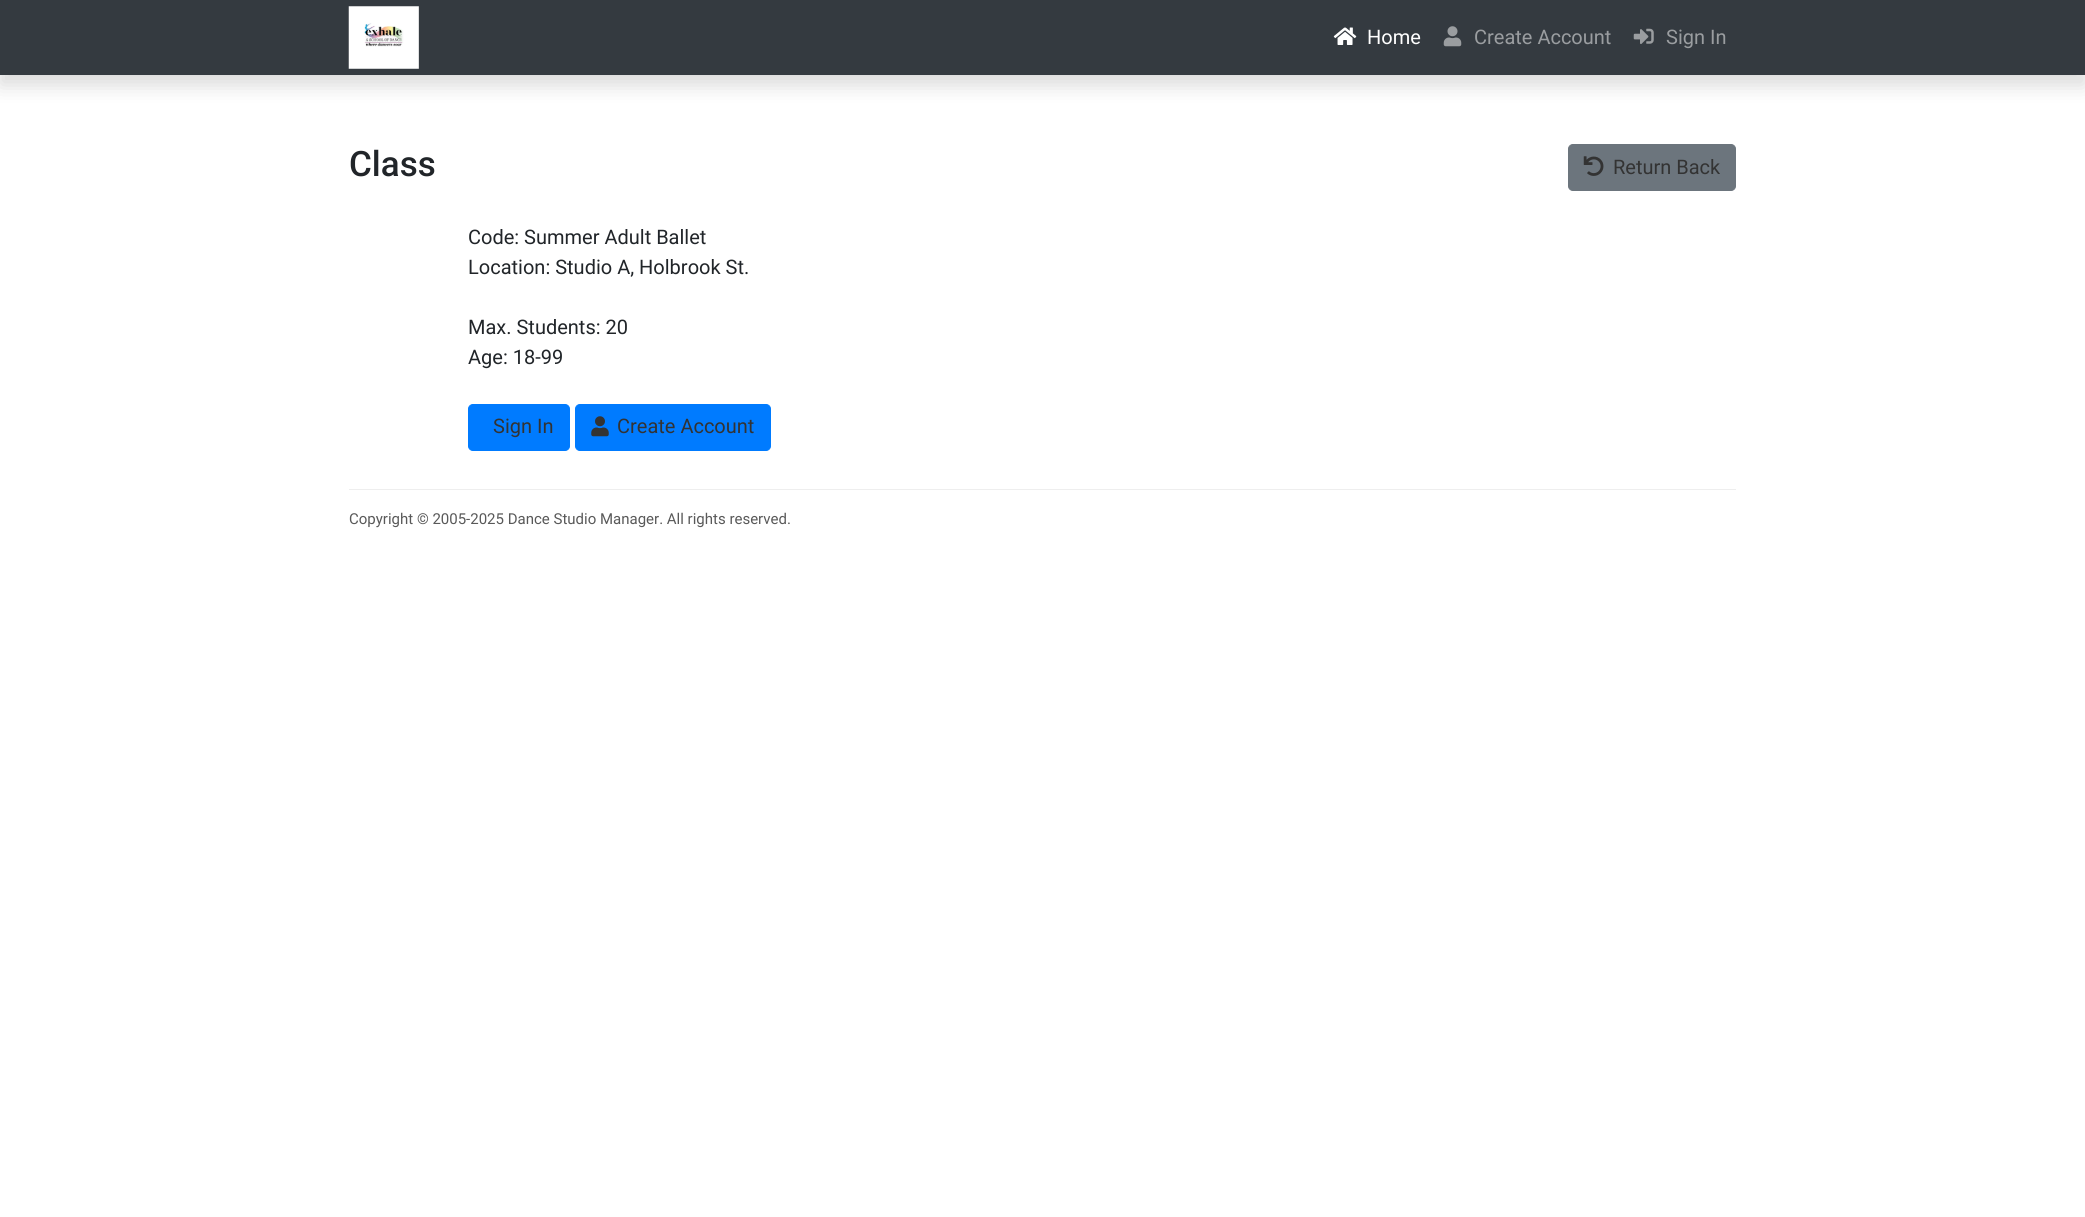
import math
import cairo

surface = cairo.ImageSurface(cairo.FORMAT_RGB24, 2085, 1217)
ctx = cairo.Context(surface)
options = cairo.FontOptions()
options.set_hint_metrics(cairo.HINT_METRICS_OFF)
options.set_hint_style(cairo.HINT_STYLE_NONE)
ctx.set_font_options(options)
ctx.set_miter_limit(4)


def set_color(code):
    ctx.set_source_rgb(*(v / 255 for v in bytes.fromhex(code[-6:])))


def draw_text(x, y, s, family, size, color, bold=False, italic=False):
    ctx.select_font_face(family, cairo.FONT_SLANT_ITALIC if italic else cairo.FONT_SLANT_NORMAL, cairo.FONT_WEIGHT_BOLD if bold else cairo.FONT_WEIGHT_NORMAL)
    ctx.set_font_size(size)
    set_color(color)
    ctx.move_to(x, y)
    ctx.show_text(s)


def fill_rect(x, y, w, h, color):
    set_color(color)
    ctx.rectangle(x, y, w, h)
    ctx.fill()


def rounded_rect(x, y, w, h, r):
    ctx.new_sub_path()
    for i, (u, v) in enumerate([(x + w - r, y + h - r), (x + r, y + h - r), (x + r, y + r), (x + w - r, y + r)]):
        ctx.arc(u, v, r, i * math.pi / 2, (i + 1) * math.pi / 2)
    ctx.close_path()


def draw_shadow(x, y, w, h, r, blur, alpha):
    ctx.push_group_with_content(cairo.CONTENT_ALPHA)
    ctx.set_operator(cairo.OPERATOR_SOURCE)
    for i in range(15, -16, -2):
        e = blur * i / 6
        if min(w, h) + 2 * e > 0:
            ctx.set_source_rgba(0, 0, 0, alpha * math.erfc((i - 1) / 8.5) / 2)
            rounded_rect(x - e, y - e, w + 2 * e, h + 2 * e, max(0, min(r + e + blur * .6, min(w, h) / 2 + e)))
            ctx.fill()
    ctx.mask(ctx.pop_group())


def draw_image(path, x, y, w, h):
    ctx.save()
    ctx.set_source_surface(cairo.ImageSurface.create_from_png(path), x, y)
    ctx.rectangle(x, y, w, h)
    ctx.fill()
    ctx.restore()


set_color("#ffffff")
ctx.paint()
set_color("#000000")
draw_shadow(0, 10, 2085, 75, 0, 10, 0.15)
fill_rect(0, 0, 2085, 75, "#343a40")
draw_image("assets/img1.png", 348, 6, 71, 63)
draw_image("assets/img2.png", 1333, 27, 24, 18)
draw_text(1367, 44, "Home", "Roboto", 20, "#ffffff")
draw_image("assets/img3.png", 1443, 26, 19, 21)
draw_text(1474, 44, "Create Account", "Roboto", 20, "#9a9da0")
draw_image("assets/img4.png", 1633, 28, 21, 16)
draw_text(1666, 44, "Sign In", "Roboto", 20, "#9a9da0")
draw_text(349, 176, "Class", "Roboto Medium", 35, "#212529")
set_color("#6c757d")
rounded_rect(1568.5, 144.5, 167, 46, 4.5)
ctx.fill_preserve()
ctx.set_line_width(1)
ctx.stroke()
draw_image("assets/img5.png", 1583, 156, 21, 20)
draw_text(1613, 174, "Return Back", "Roboto", 20, "#333333")
draw_text(468, 244, "Code: Summer Adult Ballet", "Roboto", 20, "#212529")
draw_text(468, 274, "Location: Studio A, Holbrook St.", "Roboto", 20, "#212529")
draw_text(468, 334, "Max. Students: 20", "Roboto", 20, "#212529")
draw_text(468, 364, "Age: 18-99", "Roboto", 20, "#212529")
set_color("#007bff")
rounded_rect(468.5, 404.5, 101, 46, 4.5)
ctx.fill_preserve()
ctx.stroke()
draw_text(493, 433, "Sign In", "Roboto", 20, "#333333")
set_color("#007bff")
rounded_rect(575.5, 404.5, 195, 46, 4.5)
ctx.fill_preserve()
ctx.stroke()
draw_image("assets/img6.png", 591, 416, 18, 21)
draw_text(617, 433, "Create Account", "Roboto", 20, "#333333")
fill_rect(349, 489, 1387, 1, "#eeeeee")
draw_text(349, 524, "Copyright © 2005-2025 Dance Studio Manager. All rights reserved.", "Roboto", 15, "#595959")
surface.write_to_png("output.png")
